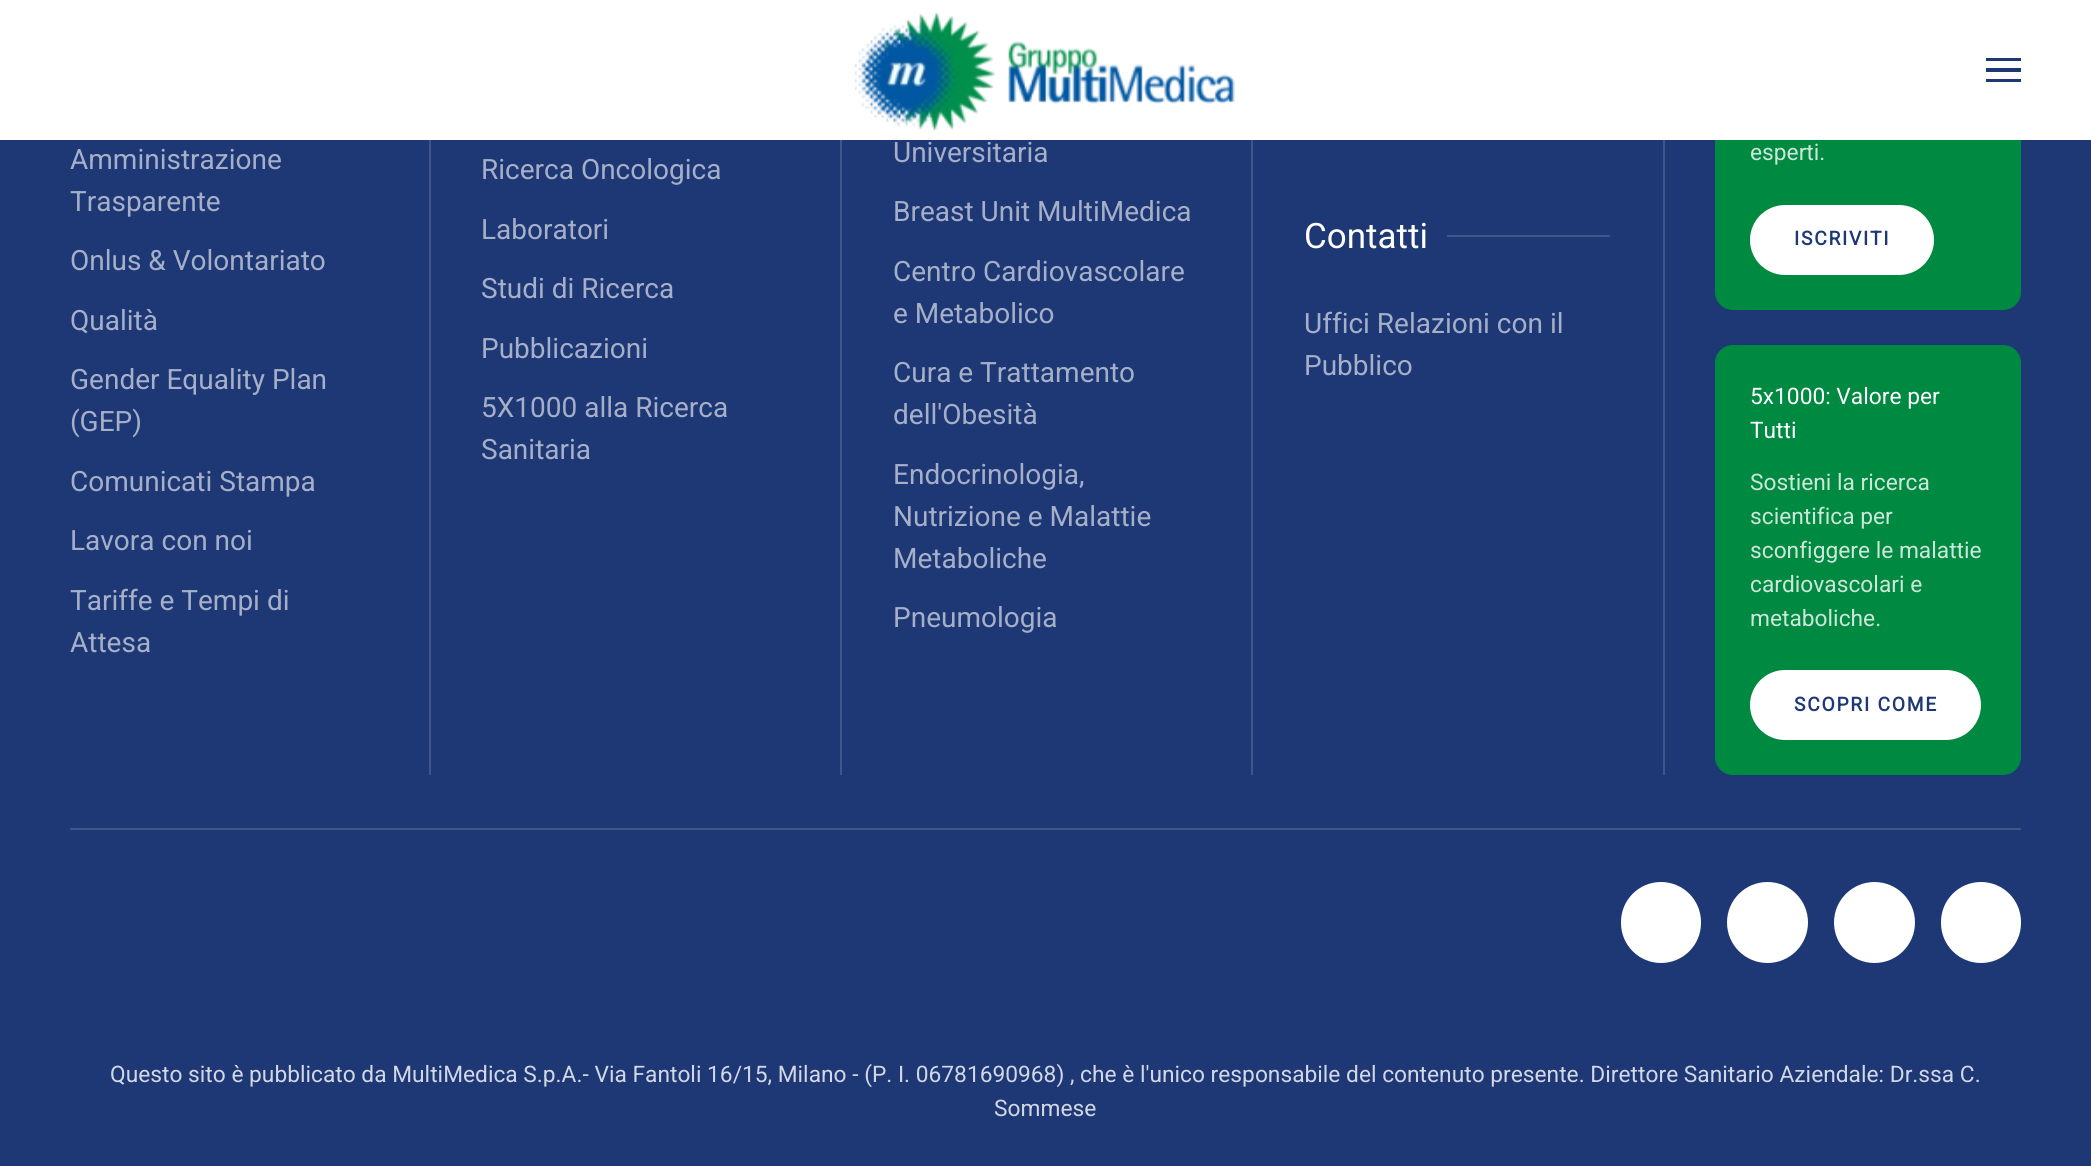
import math
import cairo

surface = cairo.ImageSurface(cairo.FORMAT_RGB24, 2091, 1166)
ctx = cairo.Context(surface)
options = cairo.FontOptions()
options.set_hint_metrics(cairo.HINT_METRICS_OFF)
options.set_hint_style(cairo.HINT_STYLE_NONE)
ctx.set_font_options(options)
ctx.set_miter_limit(4)


def set_color(code):
    ctx.set_source_rgb(*(v / 255 for v in bytes.fromhex(code[-6:])))


def draw_text(x, y, s, family, size, color, bold=False, italic=False):
    ctx.select_font_face(family, cairo.FONT_SLANT_ITALIC if italic else cairo.FONT_SLANT_NORMAL, cairo.FONT_WEIGHT_BOLD if bold else cairo.FONT_WEIGHT_NORMAL)
    ctx.set_font_size(size)
    set_color(color)
    ctx.move_to(x, y)
    ctx.show_text(s)


def draw_spaced(x, y, s, letter, word):
    ctx.move_to(x, y)
    for ch in s:
        ctx.show_text(ch)
        ctx.rel_move_to(letter + word * (ch == ' '), 0)


def fill_rect(x, y, w, h, color):
    set_color(color)
    ctx.rectangle(x, y, w, h)
    ctx.fill()


def rounded_rect(x, y, w, h, r):
    ctx.new_sub_path()
    for i, (u, v) in enumerate([(x + w - r, y + h - r), (x + r, y + h - r), (x + r, y + r), (x + w - r, y + r)]):
        ctx.arc(u, v, r, i * math.pi / 2, (i + 1) * math.pi / 2)
    ctx.close_path()


def draw_image(path, x, y, w, h):
    ctx.save()
    ctx.set_source_surface(cairo.ImageSurface.create_from_png(path), x, y)
    ctx.rectangle(x, y, w, h)
    ctx.fill()
    ctx.restore()


set_color("#1e3876")
ctx.paint()
set_color("#008940")
rounded_rect(1715, -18, 306, 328, 18)
ctx.fill()
fill_rect(0, 0, 2091, 140, "#ffffff")
draw_image("assets/img1.png", 854, 12, 381, 119)
fill_rect(1986, 58, 35, 3, "#1e3876")
fill_rect(1986, 68, 35, 4, "#1e3876")
fill_rect(1986, 79, 35, 3, "#1e3876")
draw_text(70, 169, "Amministrazione", "Roboto", 28, "#a5afc8")
draw_text(70, 211, "Trasparente", "Roboto", 28, "#a5afc8")
draw_text(70, 270, "Onlus & Volontariato", "Roboto", 28, "#a5afc8")
draw_text(70, 330, "Qualità", "Roboto", 28, "#a5afc8")
draw_text(70, 389, "Gender Equality Plan", "Roboto", 28, "#a5afc8")
draw_text(70, 431, "(GEP)", "Roboto", 28, "#a5afc8")
draw_text(70, 491, "Comunicati Stampa", "Roboto", 28, "#a5afc8")
draw_text(70, 550, "Lavora con noi", "Roboto", 28, "#a5afc8")
draw_text(70, 610, "Tariffe e Tempi di", "Roboto", 28, "#a5afc8")
draw_text(70, 652, "Attesa", "Roboto", 28, "#a5afc8")
fill_rect(429, 140, 2, 635, "#40568b")
draw_text(481, 179, "Ricerca Oncologica", "Roboto", 28, "#a5afc8")
draw_text(481, 239, "Laboratori", "Roboto", 28, "#a5afc8")
draw_text(481, 298, "Studi di Ricerca", "Roboto", 28, "#a5afc8")
draw_text(481, 358, "Pubblicazioni", "Roboto", 28, "#a5afc8")
draw_text(481, 417, "5X1000 alla Ricerca", "Roboto", 28, "#a5afc8")
draw_text(481, 459, "Sanitaria", "Roboto", 28, "#a5afc8")
fill_rect(840, 140, 2, 635, "#40568b")
draw_text(893, 162, "Universitaria", "Roboto", 28, "#a5afc8")
draw_text(893, 221, "Breast Unit MultiMedica", "Roboto", 28, "#a5afc8")
draw_text(893, 281, "Centro Cardiovascolare", "Roboto", 28, "#a5afc8")
draw_text(893, 323, "e Metabolico", "Roboto", 28, "#a5afc8")
draw_text(893, 382, "Cura e Trattamento", "Roboto", 28, "#a5afc8")
draw_text(893, 424, "dell'Obesità", "Roboto", 28, "#a5afc8")
draw_text(893, 484, "Endocrinologia,", "Roboto", 28, "#a5afc8")
draw_text(893, 526, "Nutrizione e Malattie", "Roboto", 28, "#a5afc8")
draw_text(893, 568, "Metaboliche", "Roboto", 28, "#a5afc8")
draw_text(893, 627, "Pneumologia", "Roboto", 28, "#a5afc8")
fill_rect(1251, 140, 2, 635, "#40568b")
draw_text(1304, 248, "Contatti", "Roboto", 35, "#ffffff")
fill_rect(1447, 235, 163, 2, "#40568b")
draw_text(1304, 333, "Uffici Relazioni con il", "Roboto", 28, "#a5afc8")
draw_text(1304, 375, "Pubblico", "Roboto", 28, "#a5afc8")
fill_rect(1663, 140, 2, 635, "#40568b")
draw_text(1750, 160, "esperti.", "Roboto", 22.75, "#cce7d9")
set_color("#ffffff")
rounded_rect(1750, 205, 184, 70, 35)
ctx.fill()
ctx.select_font_face("Roboto", cairo.FONT_SLANT_NORMAL, cairo.FONT_WEIGHT_BOLD)
ctx.set_font_size(19.25)
set_color("#1e3876")
draw_spaced(1794, 245, "ISCRIVITI", 1.75, 0)
set_color("#008940")
rounded_rect(1715, 345, 306, 430, 18)
ctx.fill()
draw_text(1750, 404, "5x1000: Valore per", "Roboto", 22.75, "#ffffff")
draw_text(1750, 438, "Tutti", "Roboto", 22.75, "#ffffff")
draw_text(1750, 490, "Sostieni la ricerca", "Roboto", 22.75, "#cce7d9")
draw_text(1750, 524, "scientifica per", "Roboto", 22.75, "#cce7d9")
draw_text(1750, 558, "sconfiggere le malattie", "Roboto", 22.75, "#cce7d9")
draw_text(1750, 592, "cardiovascolari e", "Roboto", 22.75, "#cce7d9")
draw_text(1750, 626, "metaboliche.", "Roboto", 22.75, "#cce7d9")
set_color("#ffffff")
rounded_rect(1750, 670, 231, 70, 35)
ctx.fill()
ctx.select_font_face("Roboto", cairo.FONT_SLANT_NORMAL, cairo.FONT_WEIGHT_BOLD)
ctx.set_font_size(19.25)
set_color("#1e3876")
draw_spaced(1794, 711, "SCOPRI COME", 1.75, 0)
fill_rect(70, 828, 1951, 2, "#40568b")
set_color("#ffffff")
rounded_rect(1621, 882, 80, 81, 40)
ctx.fill()
ctx.arc(1767.5, 922.5, 40.5, 0, 2 * math.pi)
ctx.fill()
ctx.arc(1874.5, 922.5, 40.5, 0, 2 * math.pi)
ctx.fill()
rounded_rect(1941, 882, 80, 81, 40)
ctx.fill()
draw_text(110, 1082, "Questo sito è pubblicato da MultiMedica S.p.A.- Via Fantoli 16/15, Milano - (P. I. 06781690968) , che è l'unico responsabile del contenuto presente. Direttore Sanitario Aziendale: Dr.ssa C.", "Roboto", 22.75, "#d2d7e4")
draw_text(994, 1116, "Sommese", "Roboto", 22.75, "#d2d7e4")
surface.write_to_png("output.png")
